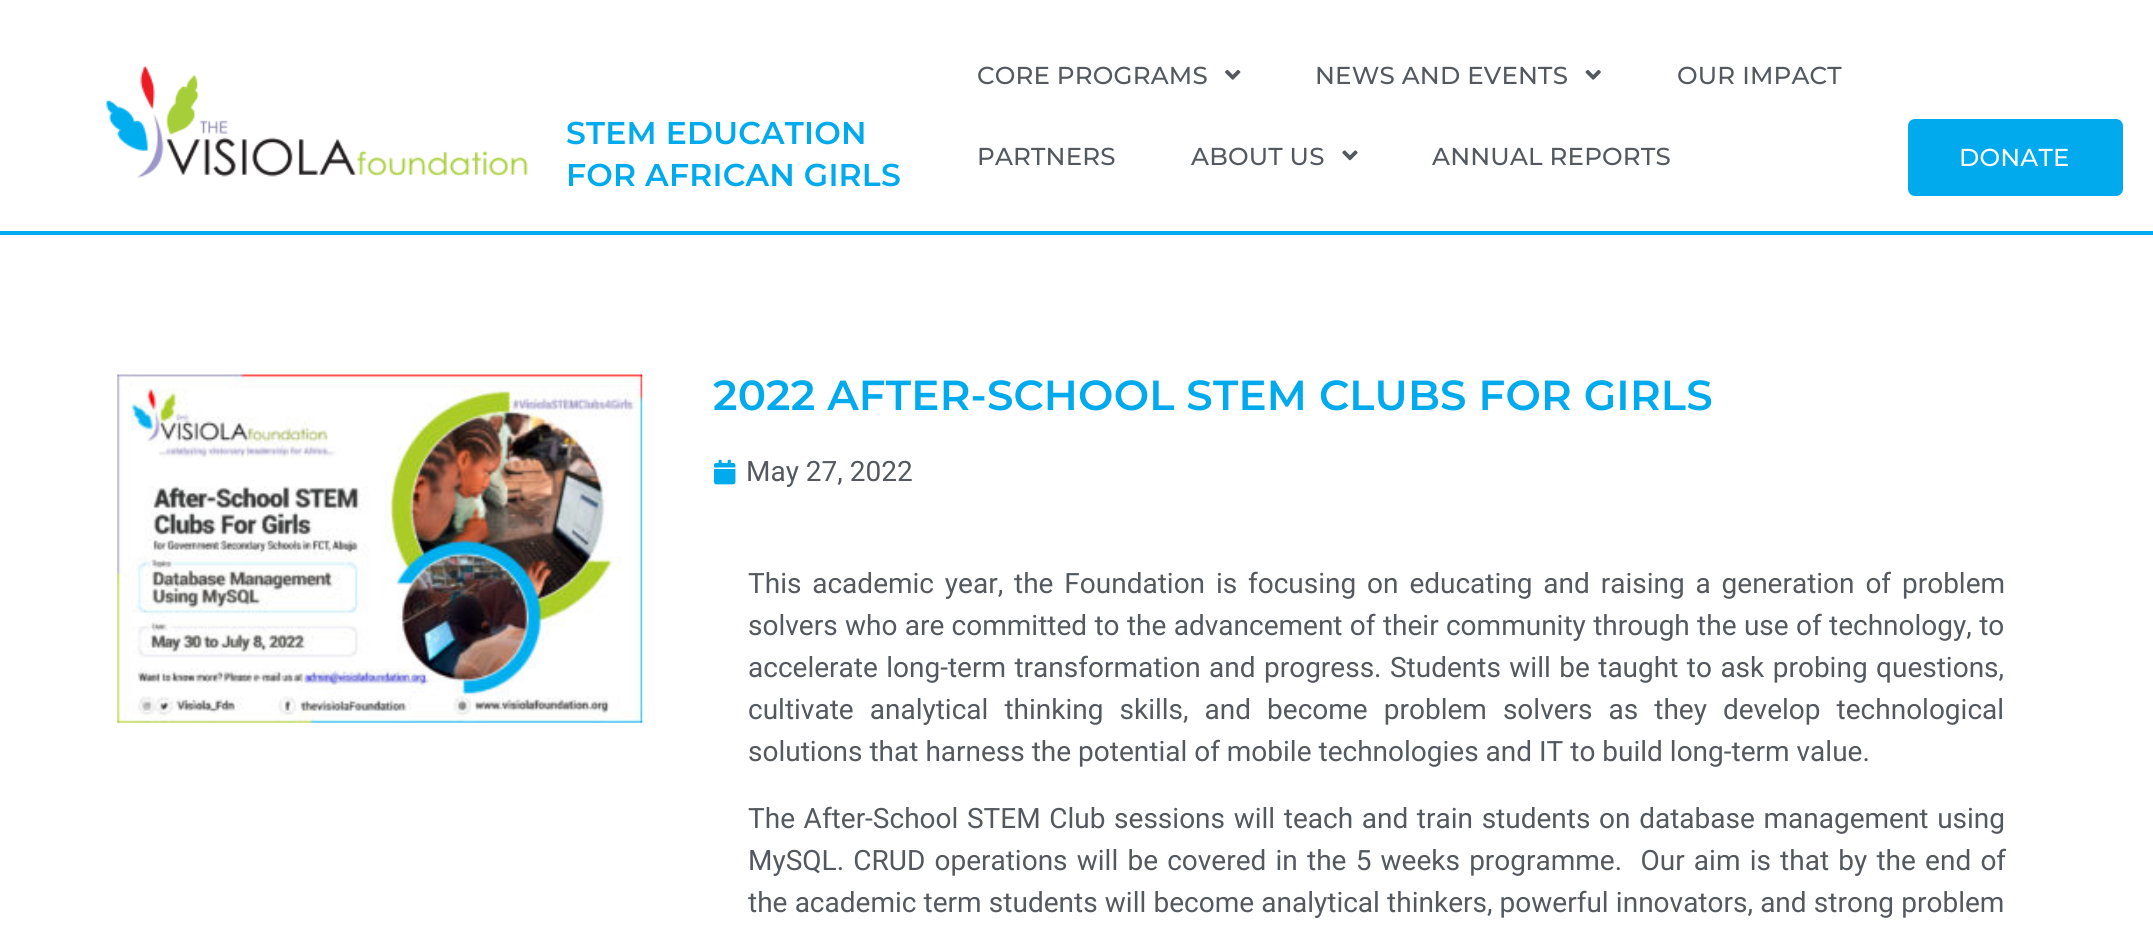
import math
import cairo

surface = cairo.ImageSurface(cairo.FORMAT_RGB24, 2153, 936)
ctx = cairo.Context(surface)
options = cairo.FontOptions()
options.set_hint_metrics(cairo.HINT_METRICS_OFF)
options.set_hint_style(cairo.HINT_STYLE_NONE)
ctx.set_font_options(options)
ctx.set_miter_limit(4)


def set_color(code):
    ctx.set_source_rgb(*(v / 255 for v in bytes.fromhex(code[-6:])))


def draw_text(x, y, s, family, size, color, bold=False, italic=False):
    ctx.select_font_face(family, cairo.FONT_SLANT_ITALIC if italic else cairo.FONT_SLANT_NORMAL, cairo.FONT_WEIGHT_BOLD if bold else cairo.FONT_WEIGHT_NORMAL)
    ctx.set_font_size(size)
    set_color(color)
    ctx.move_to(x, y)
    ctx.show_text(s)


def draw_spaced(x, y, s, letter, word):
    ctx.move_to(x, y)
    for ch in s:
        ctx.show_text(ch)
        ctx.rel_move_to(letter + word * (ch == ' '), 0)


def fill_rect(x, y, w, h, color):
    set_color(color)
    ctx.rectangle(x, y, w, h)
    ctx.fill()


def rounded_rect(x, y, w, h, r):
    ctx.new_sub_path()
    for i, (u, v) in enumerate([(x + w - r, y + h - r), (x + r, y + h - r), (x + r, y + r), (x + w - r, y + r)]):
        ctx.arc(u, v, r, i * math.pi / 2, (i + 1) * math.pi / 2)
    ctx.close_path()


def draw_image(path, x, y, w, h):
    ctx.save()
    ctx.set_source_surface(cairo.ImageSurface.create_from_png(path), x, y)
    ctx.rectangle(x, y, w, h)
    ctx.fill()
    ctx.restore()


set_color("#ffffff")
ctx.paint()
fill_rect(0, 231, 2153, 4, "#00aaec")
draw_image("assets/img1.png", 106, 65, 422, 113)
ctx.select_font_face("Montserrat SemiBold")
ctx.set_font_size(31.5)
draw_spaced(566, 144, "STEM EDUCATION", 0.2, 0)
draw_spaced(566, 186, "FOR AFRICAN GIRLS", 0.2, 0)
ctx.select_font_face("Montserrat Medium")
ctx.set_font_size(24.5)
set_color("#54595f")
draw_spaced(977, 84, "CORE PROGRAMS", 0.2, 0)
draw_image("assets/img2.png", 1225, 69, 16, 11)
draw_spaced(1315, 84, "NEWS AND EVENTS", 0.2, 0)
draw_image("assets/img3.png", 1585, 69, 16, 11)
draw_spaced(1677, 84, "OUR IMPACT", 0.2, 0)
draw_spaced(977, 165, "PARTNERS", 0.2, 0)
draw_spaced(1191, 165, "ABOUT US", 0.2, 0)
draw_image("assets/img4.png", 1342, 150, 16, 11)
draw_spaced(1432, 165, "ANNUAL REPORTS", 0.2, 0)
set_color("#00aaec")
rounded_rect(1908, 119, 215, 77, 7)
ctx.fill()
set_color("#ffffff")
draw_spaced(1959, 166, "DONATE", 0.2, 0)
draw_image("assets/img5.png", 117, 374, 526, 349)
ctx.select_font_face("Montserrat SemiBold")
ctx.set_font_size(42)
set_color("#00aaec")
draw_spaced(713, 410, "2022 AFTER-SCHOOL STEM CLUBS FOR GIRLS", 0.2, 0)
draw_image("assets/img6.png", 714, 459, 22, 26)
draw_text(746, 481, "May 27, 2022", "Roboto", 28, "#54595f")
draw_spaced(748, 593, "This academic year, the Foundation is focusing on educating and raising a generation of problem", 0, 3.9)
draw_spaced(748, 635, "solvers who are committed to the advancement of their community through the use of technology, to", 0, 0.4)
draw_spaced(748, 677, "accelerate long-term transformation and progress. Students will be taught to ask probing questions,", 0, 1.5)
draw_spaced(748, 719, "cultivate analytical thinking skills, and become problem solvers as they develop technological", 0, 9.1)
draw_text(748, 761, "solutions that harness the potential of mobile technologies and IT to build long-term value.", "Roboto", 28, "#54595f")
draw_spaced(748, 828, "The After-School STEM Club sessions will teach and train students on database management using", 0, 1.7)
draw_spaced(748, 870, "MySQL. CRUD operations will be covered in the 5 weeks programme.  Our aim is that by the end of", 0, 2.25)
draw_spaced(748, 912, "the academic term students will become analytical thinkers, powerful innovators, and strong problem", 0, 0.25)
surface.write_to_png("output.png")
